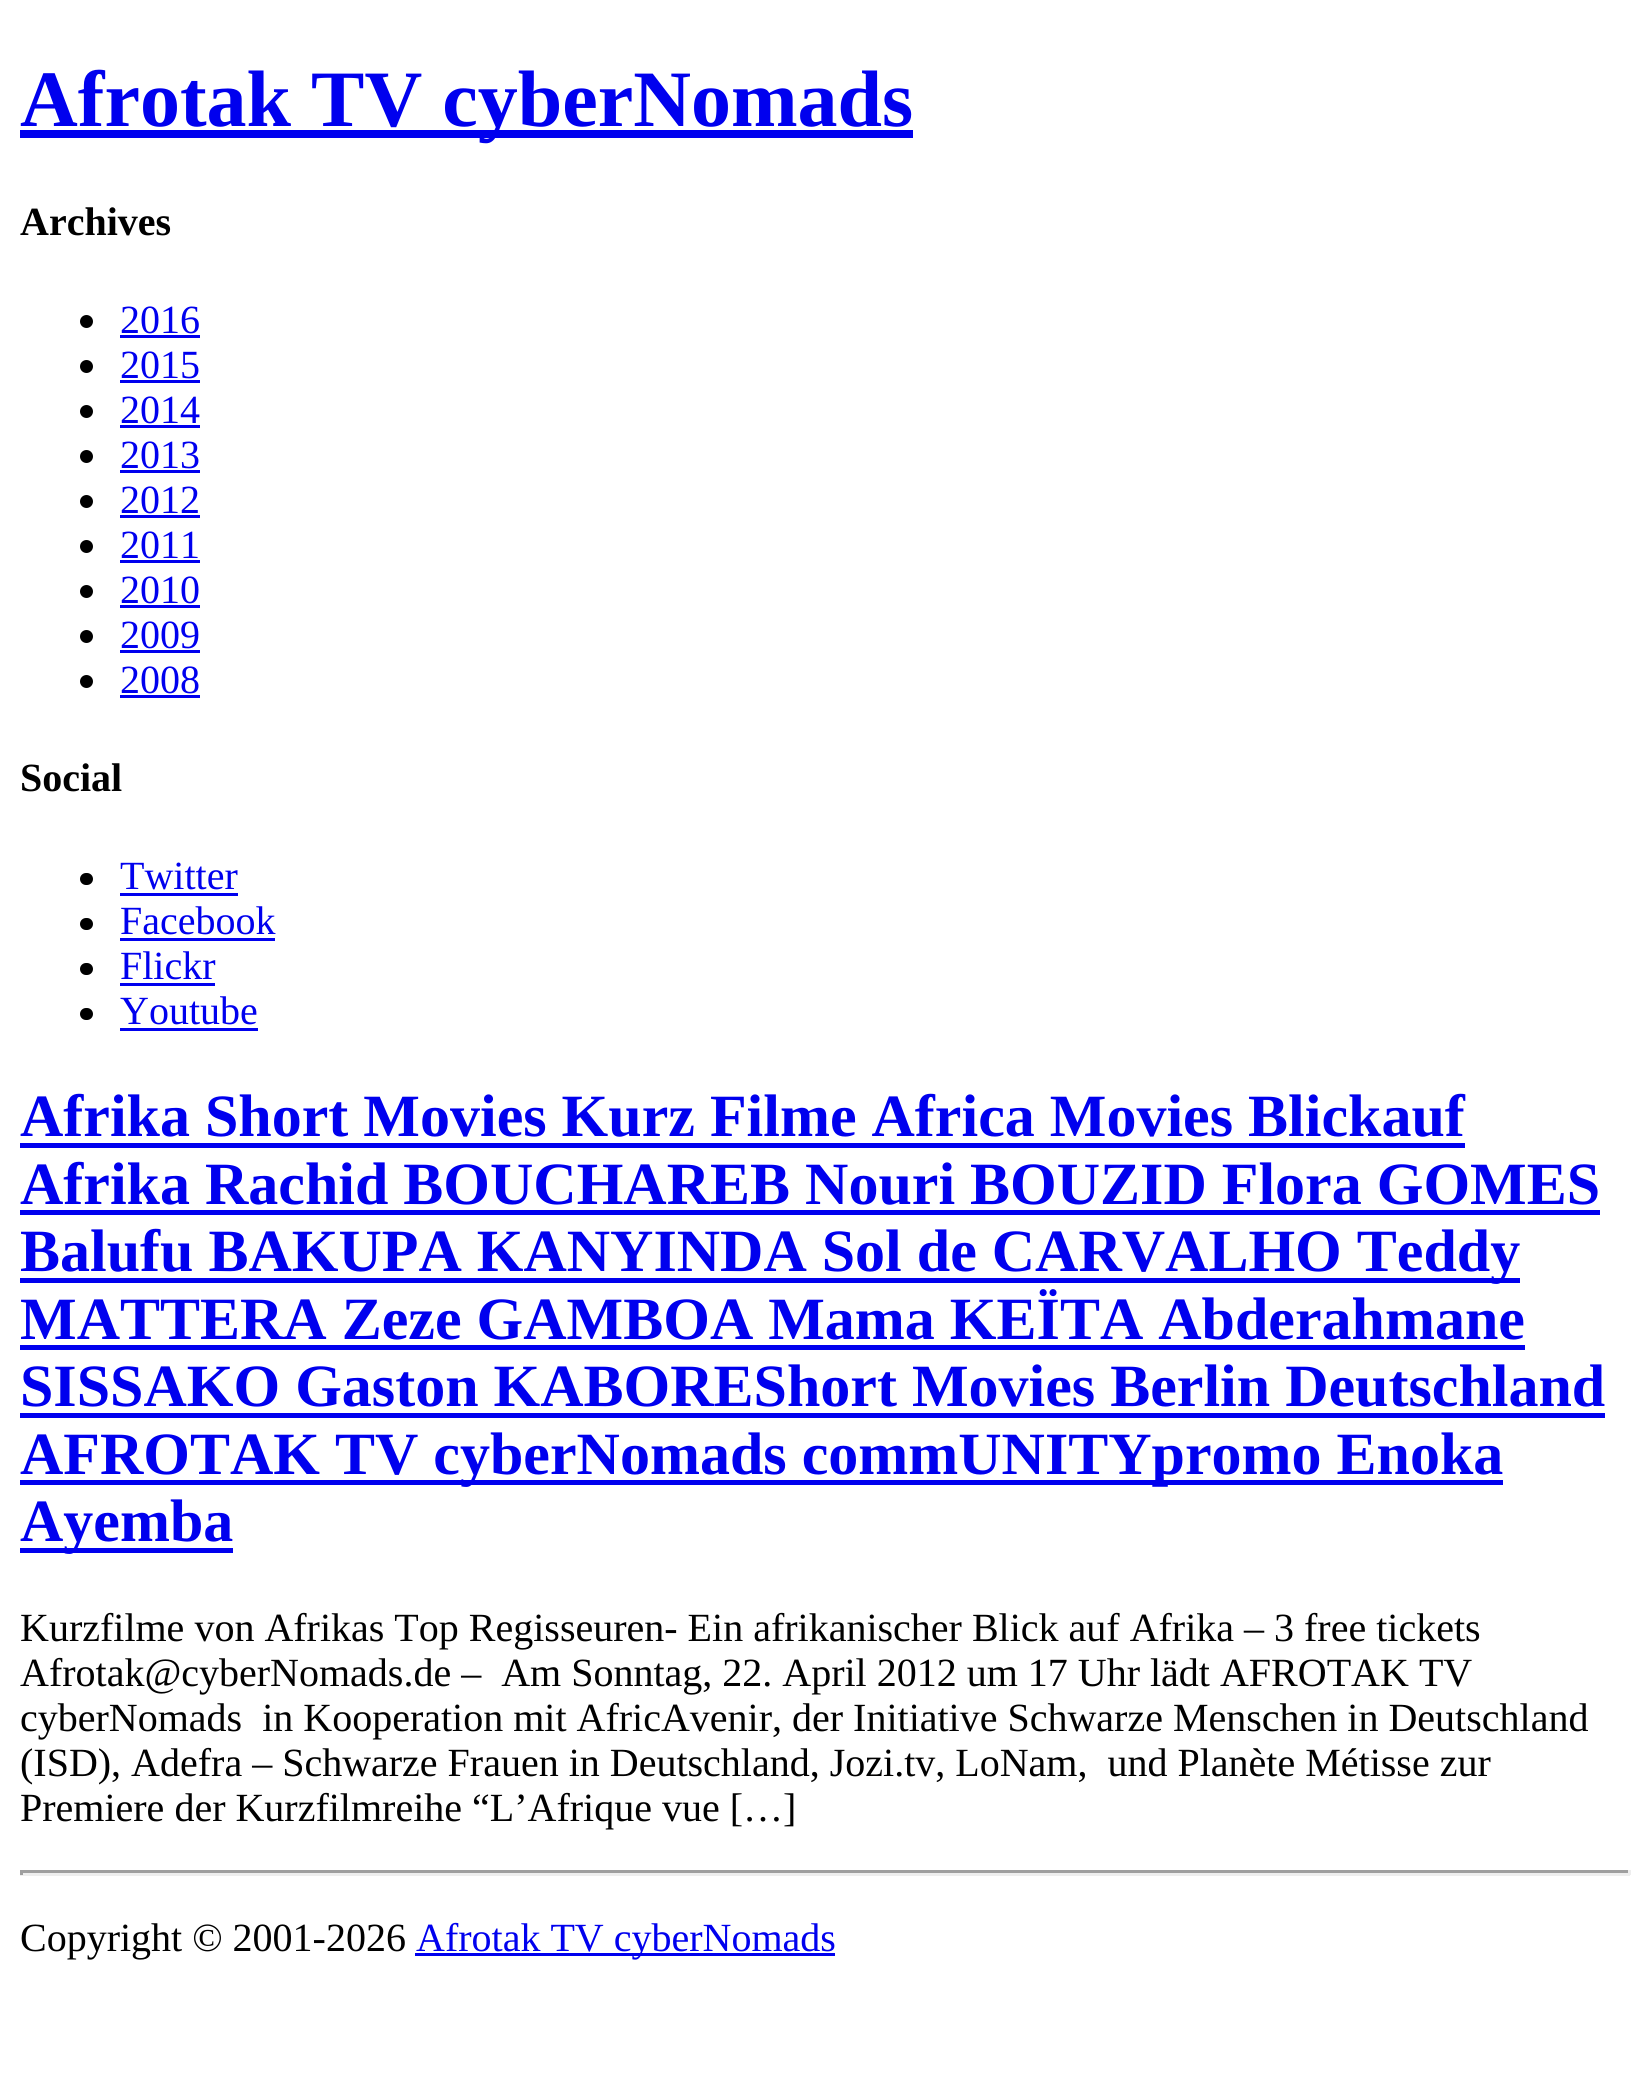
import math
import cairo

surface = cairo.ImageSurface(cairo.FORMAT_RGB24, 1650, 2095)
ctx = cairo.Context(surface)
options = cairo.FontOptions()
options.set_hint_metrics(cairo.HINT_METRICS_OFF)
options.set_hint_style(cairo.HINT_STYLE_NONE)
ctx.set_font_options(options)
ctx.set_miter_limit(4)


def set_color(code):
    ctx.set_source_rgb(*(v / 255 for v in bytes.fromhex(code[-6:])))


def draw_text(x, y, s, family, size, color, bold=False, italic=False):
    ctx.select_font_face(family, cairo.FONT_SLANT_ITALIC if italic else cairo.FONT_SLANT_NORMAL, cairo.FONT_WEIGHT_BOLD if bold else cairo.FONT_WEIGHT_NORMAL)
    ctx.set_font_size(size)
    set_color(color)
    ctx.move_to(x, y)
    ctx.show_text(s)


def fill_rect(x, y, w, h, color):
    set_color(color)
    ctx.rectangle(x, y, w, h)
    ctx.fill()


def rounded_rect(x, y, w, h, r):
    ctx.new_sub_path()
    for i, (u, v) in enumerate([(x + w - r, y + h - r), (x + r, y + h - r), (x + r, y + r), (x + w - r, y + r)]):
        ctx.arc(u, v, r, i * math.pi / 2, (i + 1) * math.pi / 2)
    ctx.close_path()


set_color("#ffffff")
ctx.paint()
fill_rect(20, 130, 893, 8, "#0000ee")
draw_text(20, 126, "Afrotak TV cyberNomads", "Liberation Serif", 80, "#0000ee", bold=True)
draw_text(20, 235, "Archives", "Liberation Serif", 40, "#000000", bold=True)
ctx.new_path()
ctx.arc(86.5, 321.5, 6.5, 0, 2 * math.pi)
ctx.fill()
draw_text(120, 333, "2016", "Liberation Serif", 40, "#0000ee")
fill_rect(120, 335, 80, 3, "#0000ee")
set_color("#000000")
ctx.new_path()
ctx.arc(86.5, 366.5, 6.5, 0, 2 * math.pi)
ctx.fill()
draw_text(120, 378, "2015", "Liberation Serif", 40, "#0000ee")
fill_rect(120, 380, 80, 3, "#0000ee")
set_color("#000000")
ctx.new_path()
ctx.arc(86.5, 411.5, 6.5, 0, 2 * math.pi)
ctx.fill()
draw_text(120, 423, "2014", "Liberation Serif", 40, "#0000ee")
fill_rect(120, 425, 80, 3, "#0000ee")
set_color("#000000")
ctx.new_path()
ctx.arc(86.5, 456.5, 6.5, 0, 2 * math.pi)
ctx.fill()
draw_text(120, 468, "2013", "Liberation Serif", 40, "#0000ee")
fill_rect(120, 470, 80, 3, "#0000ee")
set_color("#000000")
ctx.new_path()
ctx.arc(86.5, 501.5, 6.5, 0, 2 * math.pi)
ctx.fill()
draw_text(120, 513, "2012", "Liberation Serif", 40, "#0000ee")
fill_rect(120, 515, 80, 3, "#0000ee")
set_color("#000000")
ctx.new_path()
ctx.arc(86.5, 546.5, 6.5, 0, 2 * math.pi)
ctx.fill()
draw_text(120, 558, "2011", "Liberation Serif", 40, "#0000ee")
fill_rect(120, 560, 80, 3, "#0000ee")
set_color("#000000")
ctx.new_path()
ctx.arc(86.5, 591.5, 6.5, 0, 2 * math.pi)
ctx.fill()
draw_text(120, 603, "2010", "Liberation Serif", 40, "#0000ee")
fill_rect(120, 605, 80, 3, "#0000ee")
set_color("#000000")
ctx.new_path()
ctx.arc(86.5, 636.5, 6.5, 0, 2 * math.pi)
ctx.fill()
draw_text(120, 648, "2009", "Liberation Serif", 40, "#0000ee")
fill_rect(120, 650, 80, 3, "#0000ee")
set_color("#000000")
ctx.new_path()
ctx.arc(86.5, 681.5, 6.5, 0, 2 * math.pi)
ctx.fill()
draw_text(120, 693, "2008", "Liberation Serif", 40, "#0000ee")
fill_rect(120, 695, 80, 3, "#0000ee")
draw_text(20, 791, "Social", "Liberation Serif", 40, "#000000", bold=True)
rounded_rect(80, 873, 13, 12, 6)
ctx.fill()
draw_text(120, 889, "Twitter", "Liberation Serif", 40, "#0000ee")
fill_rect(120, 893, 118, 3, "#0000ee")
set_color("#000000")
rounded_rect(80, 918, 13, 12, 6)
ctx.fill()
draw_text(120, 934, "Facebook", "Liberation Serif", 40, "#0000ee")
fill_rect(120, 938, 155, 3, "#0000ee")
set_color("#000000")
rounded_rect(80, 963, 13, 12, 6)
ctx.fill()
draw_text(120, 979, "Flickr", "Liberation Serif", 40, "#0000ee")
fill_rect(120, 983, 95, 3, "#0000ee")
set_color("#000000")
rounded_rect(80, 1008, 13, 12, 6)
ctx.fill()
draw_text(120, 1024, "Youtube", "Liberation Serif", 40, "#0000ee")
fill_rect(120, 1028, 138, 3, "#0000ee")
draw_text(20, 1136, "Afrika Short Movies Kurz Filme Africa Movies Blickauf", "Liberation Serif", 60, "#0000ee", bold=True)
fill_rect(20, 1143, 1445, 5, "#0000ee")
draw_text(20, 1204, "Afrika Rachid BOUCHAREB Nouri BOUZID Flora GOMES", "Liberation Serif", 60, "#0000ee", bold=True)
fill_rect(20, 1210, 1580, 5, "#0000ee")
fill_rect(20, 1278, 1500, 5, "#0000ee")
draw_text(20, 1271, "Balufu BAKUPA KANYINDA Sol de CARVALHO Teddy", "Liberation Serif", 60, "#0000ee", bold=True)
draw_text(20, 1339, "MATTERA Zeze GAMBOA Mama KEÏTA Abderahmane", "Liberation Serif", 60, "#0000ee", bold=True)
fill_rect(20, 1345, 1505, 5, "#0000ee")
draw_text(20, 1406, "SISSAKO Gaston KABOREShort Movies Berlin Deutschland", "Liberation Serif", 60, "#0000ee", bold=True)
fill_rect(20, 1413, 1585, 5, "#0000ee")
fill_rect(20, 1480, 1483, 5, "#0000ee")
draw_text(20, 1474, "AFROTAK TV cyberNomads commUNITYpromo Enoka", "Liberation Serif", 60, "#0000ee", bold=True)
fill_rect(20, 1548, 213, 5, "#0000ee")
draw_text(20, 1541, "Ayemba", "Liberation Serif", 60, "#0000ee", bold=True)
draw_text(20, 1641, "Kurzfilme von Afrikas Top Regisseuren- Ein afrikanischer Blick auf Afrika – 3 free tickets", "Liberation Serif", 40, "#000000")
draw_text(20, 1686, "Afrotak@cyberNomads.de –  Am Sonntag, 22. April 2012 um 17 Uhr lädt AFROTAK TV", "Liberation Serif", 40, "#000000")
draw_text(20, 1731, "cyberNomads  in Kooperation mit AfricAvenir, der Initiative Schwarze Menschen in Deutschland", "Liberation Serif", 40, "#000000")
draw_text(20, 1776, "(ISD), Adefra – Schwarze Frauen in Deutschland, Jozi.tv, LoNam,  und Planète Métisse zur", "Liberation Serif", 40, "#000000")
draw_text(20, 1821, "Premiere der Kurzfilmreihe “L’Afrique vue […]", "Liberation Serif", 40, "#000000")
fill_rect(20, 1870, 1610, 3, "#9f9f9f")
fill_rect(1628, 1870, 3, 5, "#eeeeee")
fill_rect(20, 1873, 1610, 3, "#eeeeee")
fill_rect(20, 1870, 3, 5, "#9f9f9f")
draw_text(20, 1951, "Copyright © 2001-2026", "Liberation Serif", 40, "#000000")
fill_rect(415, 1953, 420, 3, "#0000ee")
draw_text(416, 1951, "Afrotak TV cyberNomads", "Liberation Serif", 40, "#0000ee")
surface.write_to_png("output.png")
